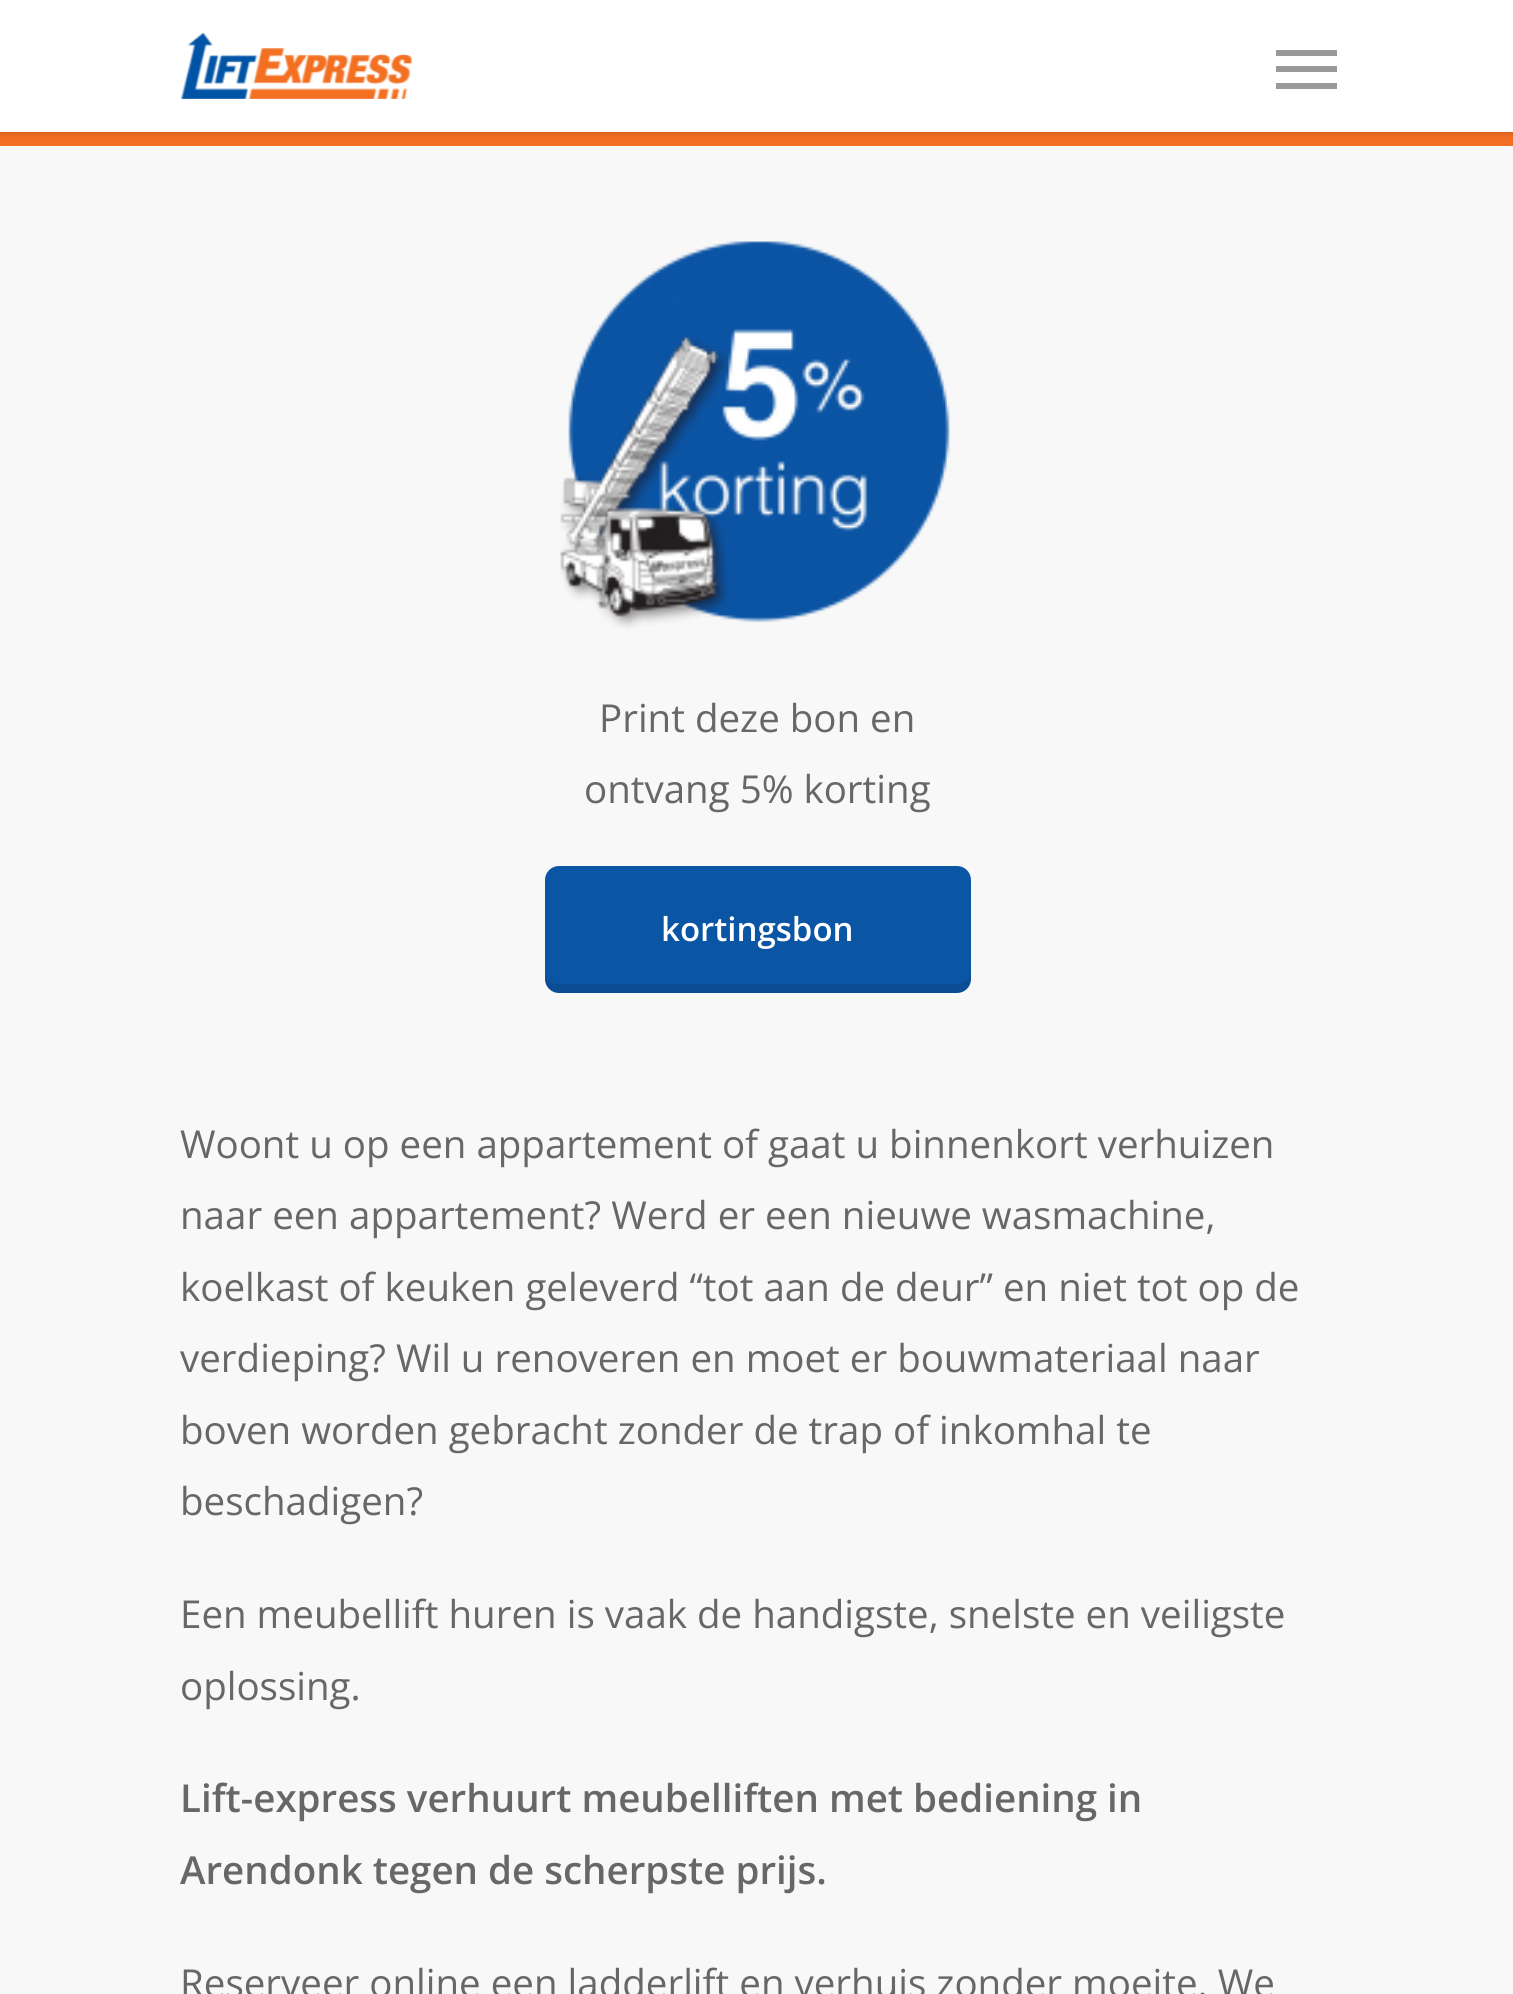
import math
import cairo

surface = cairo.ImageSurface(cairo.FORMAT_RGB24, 1513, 1994)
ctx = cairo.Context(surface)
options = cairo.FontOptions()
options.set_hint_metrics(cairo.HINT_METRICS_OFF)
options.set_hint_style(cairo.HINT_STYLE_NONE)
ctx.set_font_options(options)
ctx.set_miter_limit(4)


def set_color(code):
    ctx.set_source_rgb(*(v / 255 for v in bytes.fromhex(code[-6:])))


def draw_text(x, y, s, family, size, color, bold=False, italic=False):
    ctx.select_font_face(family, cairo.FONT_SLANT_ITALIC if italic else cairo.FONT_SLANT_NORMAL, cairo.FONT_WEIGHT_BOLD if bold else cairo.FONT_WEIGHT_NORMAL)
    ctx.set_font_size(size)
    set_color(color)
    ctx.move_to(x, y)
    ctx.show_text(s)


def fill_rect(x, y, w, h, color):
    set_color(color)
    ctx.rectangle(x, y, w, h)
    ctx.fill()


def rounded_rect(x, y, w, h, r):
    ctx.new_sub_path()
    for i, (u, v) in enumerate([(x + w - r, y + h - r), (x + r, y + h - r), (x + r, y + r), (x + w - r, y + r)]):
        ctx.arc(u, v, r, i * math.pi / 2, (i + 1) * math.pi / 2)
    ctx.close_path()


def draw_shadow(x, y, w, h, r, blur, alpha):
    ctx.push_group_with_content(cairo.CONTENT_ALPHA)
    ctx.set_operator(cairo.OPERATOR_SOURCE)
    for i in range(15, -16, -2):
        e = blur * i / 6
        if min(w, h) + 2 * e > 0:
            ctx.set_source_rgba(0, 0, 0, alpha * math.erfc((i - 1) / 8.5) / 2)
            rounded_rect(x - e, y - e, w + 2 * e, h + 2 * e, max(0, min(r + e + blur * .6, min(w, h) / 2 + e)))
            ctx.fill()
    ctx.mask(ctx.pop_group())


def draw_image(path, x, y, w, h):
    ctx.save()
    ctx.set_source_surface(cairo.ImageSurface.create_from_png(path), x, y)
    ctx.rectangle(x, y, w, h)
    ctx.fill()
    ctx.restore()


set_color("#f8f8f8")
ctx.paint()
fill_rect(0, 132, 1513, 14, "#f36f24")
set_color("#000000")
draw_shadow(0, 0, 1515, 132, 0, 4, 0.22)
fill_rect(0, 0, 1513, 132, "#ffffff")
draw_image("assets/img1.png", 181, 33, 232, 66)
fill_rect(1276, 50, 61, 6, "#999999")
fill_rect(1276, 83, 61, 6, "#999999")
fill_rect(1276, 66, 61, 6, "#999999")
draw_image("assets/img2.png", 560, 241, 390, 388)
draw_text(599, 732, "Print deze bon en", "Open Sans", 38.5, "#676767")
draw_text(584, 803, "ontvang 5% korting", "Open Sans", 38.5, "#676767")
set_color("#0b55a5")
rounded_rect(545, 866, 426, 127, 14)
ctx.fill()
ctx.set_source_rgba(0, 0, 0, 0.1)
ctx.new_path()
ctx.move_to(545, 976)
ctx.line_to(545, 979)
ctx.curve_to(545, 987, 551, 993, 559, 993)
ctx.line_to(957, 993)
ctx.curve_to(965, 993, 971, 987, 971, 979)
ctx.line_to(971, 971)
ctx.curve_to(971, 978, 965, 984, 957, 984)
ctx.line_to(558, 984)
ctx.curve_to(553, 984, 547, 980, 545, 976)
ctx.close_path()
ctx.fill()
draw_text(661, 941, "kortingsbon", "Open Sans SemiBold", 33, "#ffffff")
draw_text(180, 1158, "Woont u op een appartement of gaat u binnenkort verhuizen", "Open Sans", 38.5, "#676767")
draw_text(180, 1229, "naar een appartement? Werd er een nieuwe wasmachine,", "Open Sans", 38.5, "#676767")
draw_text(180, 1301, "koelkast of keuken geleverd “tot aan de deur” en niet tot op de", "Open Sans", 38.5, "#676767")
draw_text(180, 1372, "verdieping? Wil u renoveren en moet er bouwmateriaal naar", "Open Sans", 38.5, "#676767")
draw_text(180, 1444, "boven worden gebracht zonder de trap of inkomhal te", "Open Sans", 38.5, "#676767")
draw_text(180, 1515, "beschadigen?", "Open Sans", 38.5, "#676767")
draw_text(180, 1628, "Een meubellift huren is vaak de handigste, snelste en veiligste", "Open Sans", 38.5, "#676767")
draw_text(180, 1700, "oplossing.", "Open Sans", 38.5, "#676767")
draw_text(180, 1812, "Lift-express verhuurt meubelliften met bediening in", "Open Sans SemiBold", 38.5, "#676767")
draw_text(180, 1884, "Arendonk tegen de scherpste prijs.", "Open Sans SemiBold", 38.5, "#676767")
draw_text(180, 1997, "Reserveer online een ladderlift en verhuis zonder moeite. We", "Open Sans", 38.5, "#676767")
surface.write_to_png("output.png")
